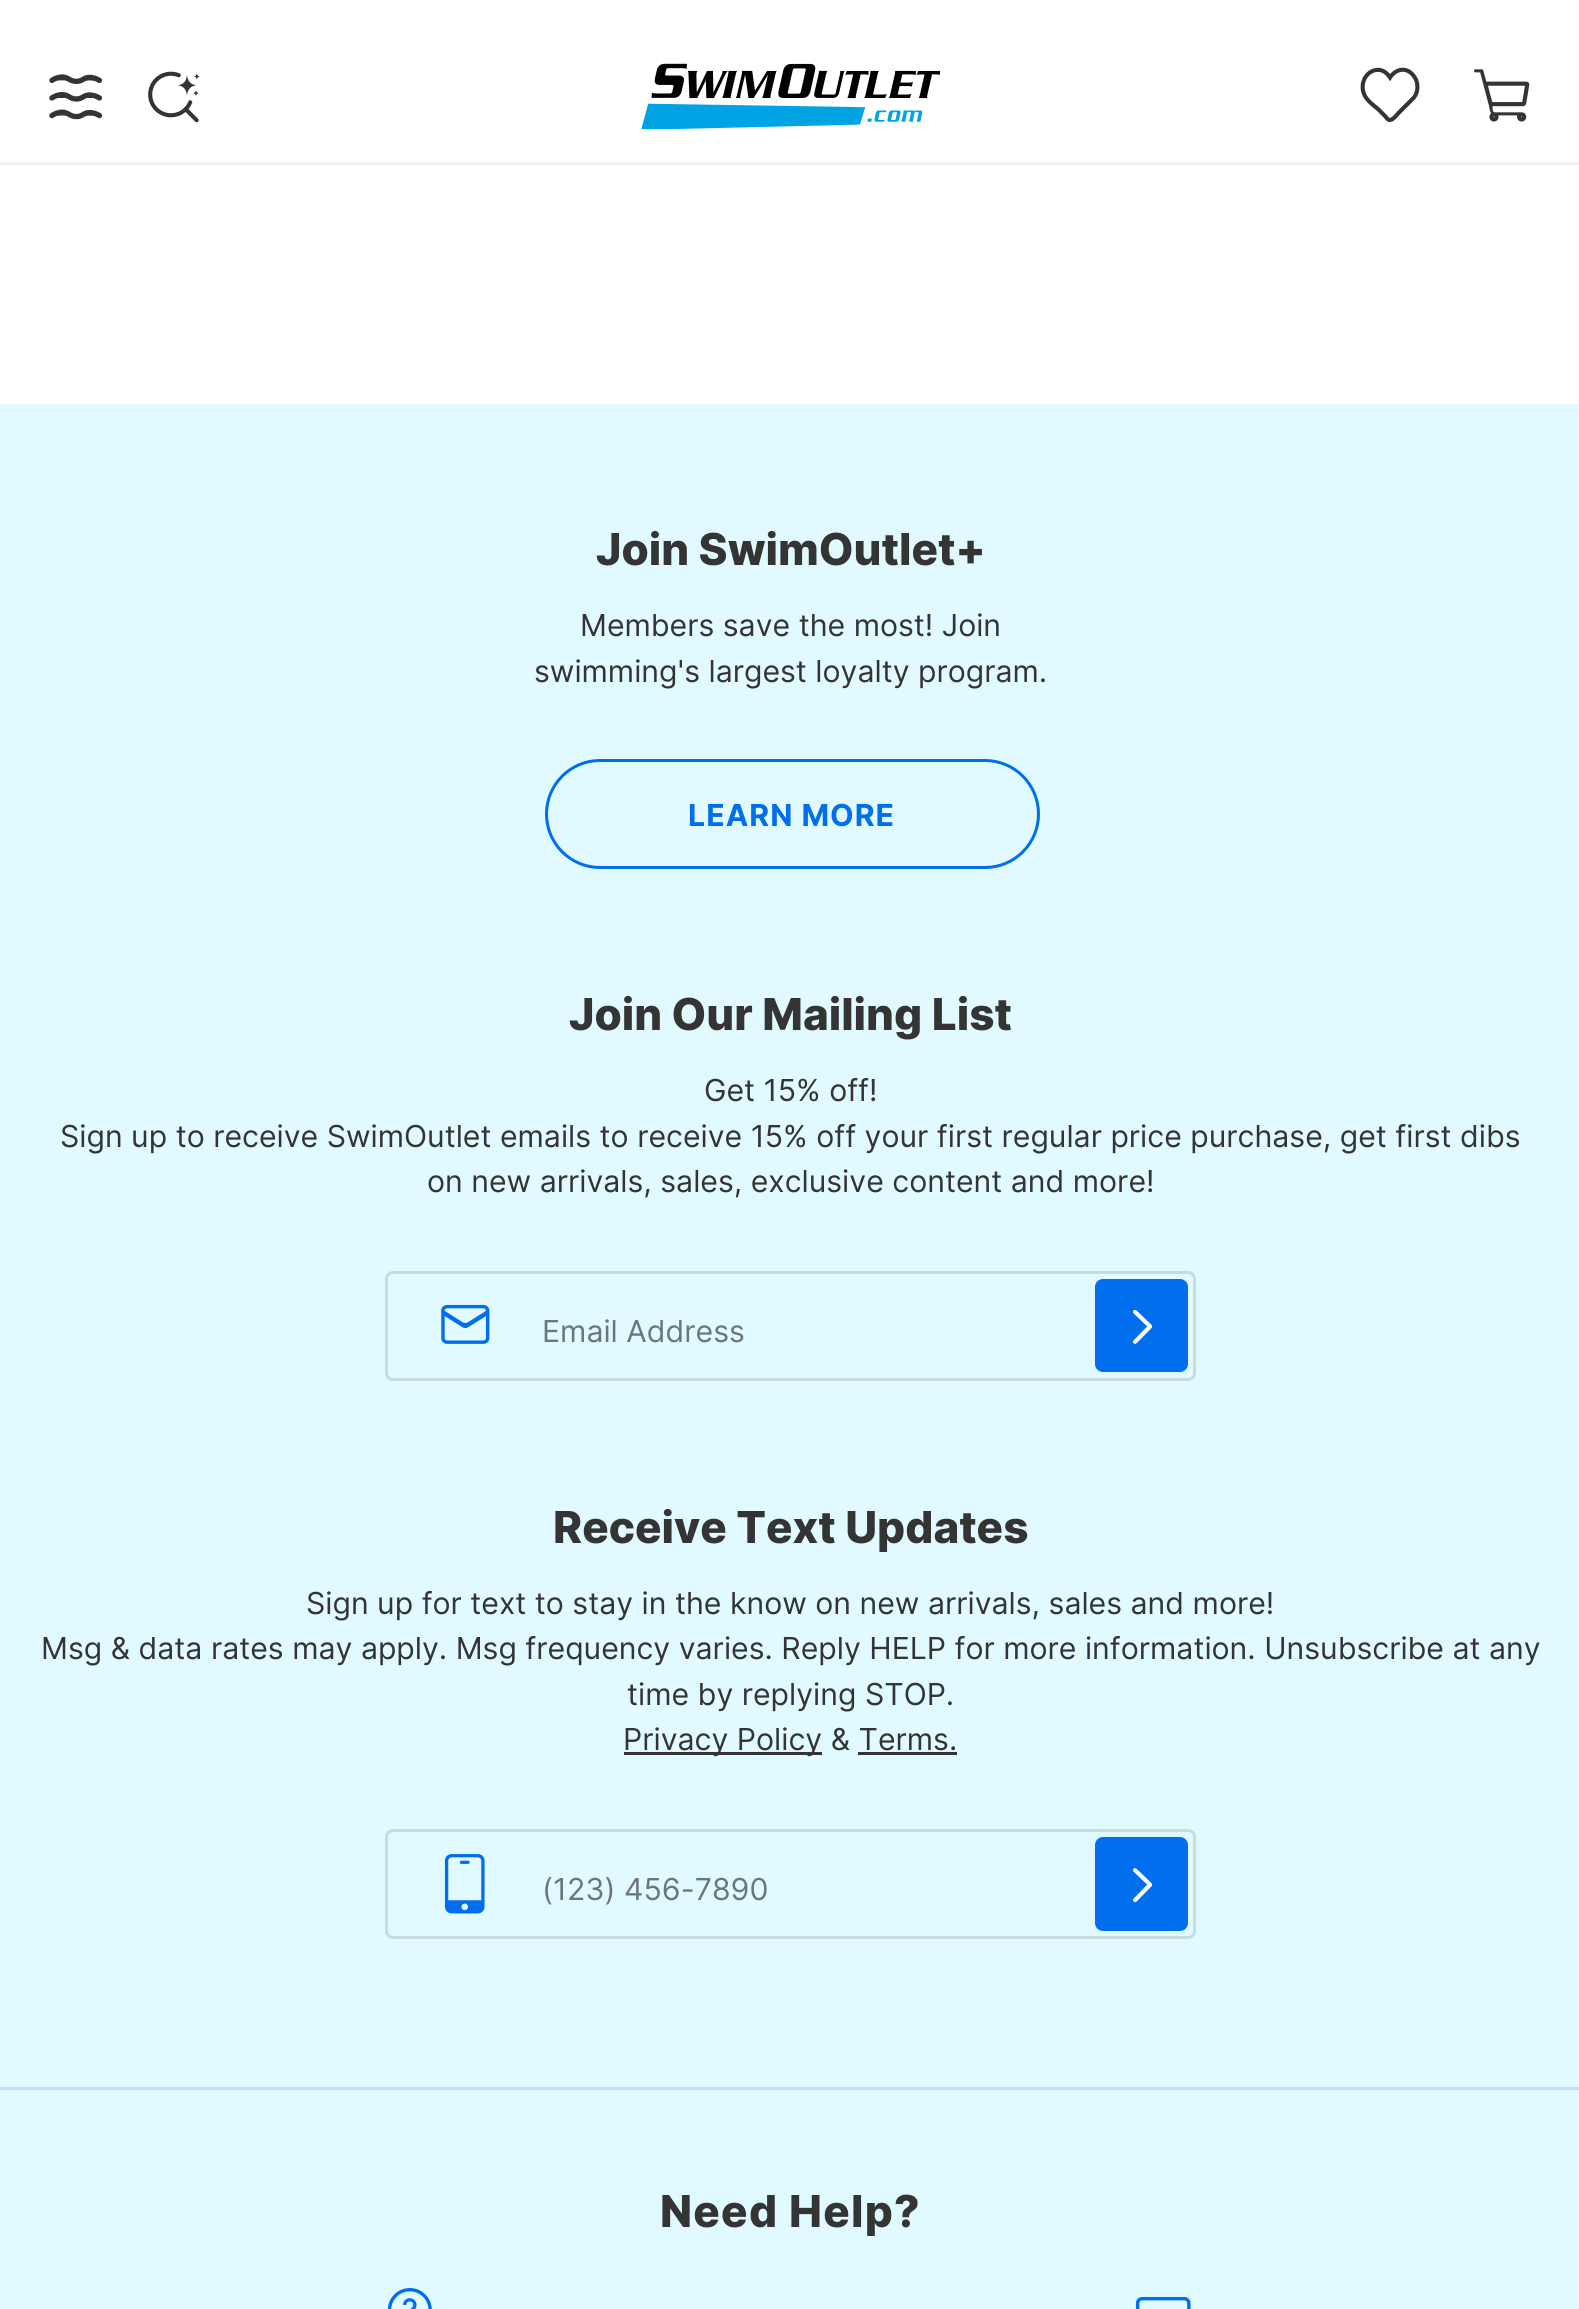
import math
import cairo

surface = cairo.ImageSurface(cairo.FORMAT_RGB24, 1579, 2309)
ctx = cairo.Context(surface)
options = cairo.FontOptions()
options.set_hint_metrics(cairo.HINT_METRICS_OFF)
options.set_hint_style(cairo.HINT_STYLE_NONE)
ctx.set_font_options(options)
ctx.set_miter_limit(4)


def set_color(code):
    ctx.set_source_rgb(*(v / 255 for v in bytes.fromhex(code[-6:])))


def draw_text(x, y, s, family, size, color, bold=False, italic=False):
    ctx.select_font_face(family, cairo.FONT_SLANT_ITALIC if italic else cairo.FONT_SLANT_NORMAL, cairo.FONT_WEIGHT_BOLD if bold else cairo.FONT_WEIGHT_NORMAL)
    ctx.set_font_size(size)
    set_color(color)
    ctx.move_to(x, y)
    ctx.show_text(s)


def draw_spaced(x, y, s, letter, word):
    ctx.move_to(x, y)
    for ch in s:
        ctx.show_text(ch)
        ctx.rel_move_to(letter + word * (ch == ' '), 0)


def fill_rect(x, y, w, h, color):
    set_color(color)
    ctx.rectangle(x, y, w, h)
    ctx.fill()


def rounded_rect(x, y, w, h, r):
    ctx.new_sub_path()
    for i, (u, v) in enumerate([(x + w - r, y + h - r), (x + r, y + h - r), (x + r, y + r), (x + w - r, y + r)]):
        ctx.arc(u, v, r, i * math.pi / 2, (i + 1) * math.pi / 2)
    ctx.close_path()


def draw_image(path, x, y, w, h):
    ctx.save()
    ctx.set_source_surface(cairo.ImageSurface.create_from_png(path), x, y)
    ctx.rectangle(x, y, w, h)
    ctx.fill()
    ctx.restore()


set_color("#ffffff")
ctx.paint()
fill_rect(0, 162, 1579, 3, "#f1f1f1")
draw_image("assets/img1.png", 49, 74, 54, 46)
draw_image("assets/img2.png", 148, 71, 52, 52)
draw_image("assets/img3.png", 641, 63, 300, 66)
ctx.new_path()
ctx.move_to(1413, 75)
ctx.curve_to(1406, 66.5, 1395.5, 69, 1390, 77.5)
ctx.curve_to(1378.5, 59.5, 1356, 76.5, 1364.5, 95)
ctx.curve_to(1367, 100.5, 1373, 105, 1378, 109)
ctx.line_to(1385, 116)
ctx.curve_to(1385.5, 116.5, 1388, 120.5, 1390, 120)
ctx.curve_to(1393, 120, 1397.5, 114, 1399, 112.5)
ctx.line_to(1414, 97.5)
ctx.curve_to(1419, 91, 1418.5, 81, 1413, 75)
ctx.close_path()
set_color("#343434")
ctx.set_line_width(4.1)
ctx.stroke()
draw_image("assets/img4.png", 1474, 69, 56, 53)
fill_rect(0, 404, 1579, 1905, "#e0faff")
fill_rect(0, 2087, 1579, 3, "#bce4fc")
draw_text(596, 565, "Join SwimOutlet+", "Inter ExtraBold", 44, "#343434")
draw_text(580, 636, "Members save the most! Join", "Inter", 30.25, "#343434")
draw_text(534, 682, "swimming's largest loyalty program.", "Inter", 30.25, "#343434")
rounded_rect(546.5, 760.5, 492, 107, 53.5)
set_color("#006eed")
ctx.set_line_width(3)
ctx.stroke()
ctx.select_font_face("Inter", cairo.FONT_SLANT_NORMAL, cairo.FONT_WEIGHT_BOLD)
draw_spaced(688, 826, "LEARN MORE", 1, 0)
draw_text(569, 1030, "Join Our Mailing List", "Inter ExtraBold", 44, "#343434")
draw_text(704, 1101, "Get 15% off!", "Inter", 30.25, "#343434")
draw_text(60, 1147, "Sign up to receive SwimOutlet emails to receive 15% off your first regular price purchase, get first dibs", "Inter", 30.25, "#343434")
draw_text(427, 1192, "on new arrivals, sales, exclusive content and more!", "Inter", 30.25, "#343434")
rounded_rect(386.5, 1272.5, 808, 107, 6.5)
set_color("#c8dbdf")
ctx.stroke()
draw_image("assets/img5.png", 441, 1304, 49, 40)
draw_text(542, 1342, "Email Address", "Inter", 30.25, "#6c757d")
set_color("#006eed")
rounded_rect(1096.5, 1280.5, 90, 90, 6.5)
ctx.fill_preserve()
ctx.stroke()
draw_image("assets/img6.png", 1133, 1309, 19, 35)
draw_text(553, 1543, "Receive Text Updates", "Inter ExtraBold", 44, "#343434")
draw_text(306, 1614, "Sign up for text to stay in the know on new arrivals, sales and more!", "Inter", 30.25, "#343434")
draw_text(41, 1659, "Msg & data rates may apply. Msg frequency varies. Reply HELP for more information. Unsubscribe at any", "Inter", 30.25, "#343434")
draw_text(627, 1705, "time by replying STOP.", "Inter", 30.25, "#343434")
fill_rect(624, 1752, 198, 3, "#343434")
draw_text(623, 1750, "Privacy Policy & Terms.", "Inter", 30.25, "#343434")
fill_rect(858, 1752, 99, 3, "#343434")
rounded_rect(386.5, 1830.5, 808, 107, 6.5)
set_color("#c8dbdf")
ctx.stroke()
draw_image("assets/img7.png", 444, 1854, 41, 60)
draw_text(542, 1900, "(123) 456-7890", "Inter", 30.25, "#6c757d")
set_color("#006eed")
rounded_rect(1096.5, 1838.5, 90, 91, 6.5)
ctx.fill_preserve()
ctx.stroke()
draw_image("assets/img8.png", 1133, 1868, 19, 35)
ctx.select_font_face("Inter ExtraBold")
ctx.set_font_size(44)
set_color("#343434")
draw_spaced(660, 2227, "Need Help?", 1.25, 0)
draw_image("assets/img9.png", 388, 2288, 44, 21)
draw_image("assets/img10.png", 1135, 2297, 56, 12)
surface.write_to_png("output.png")
